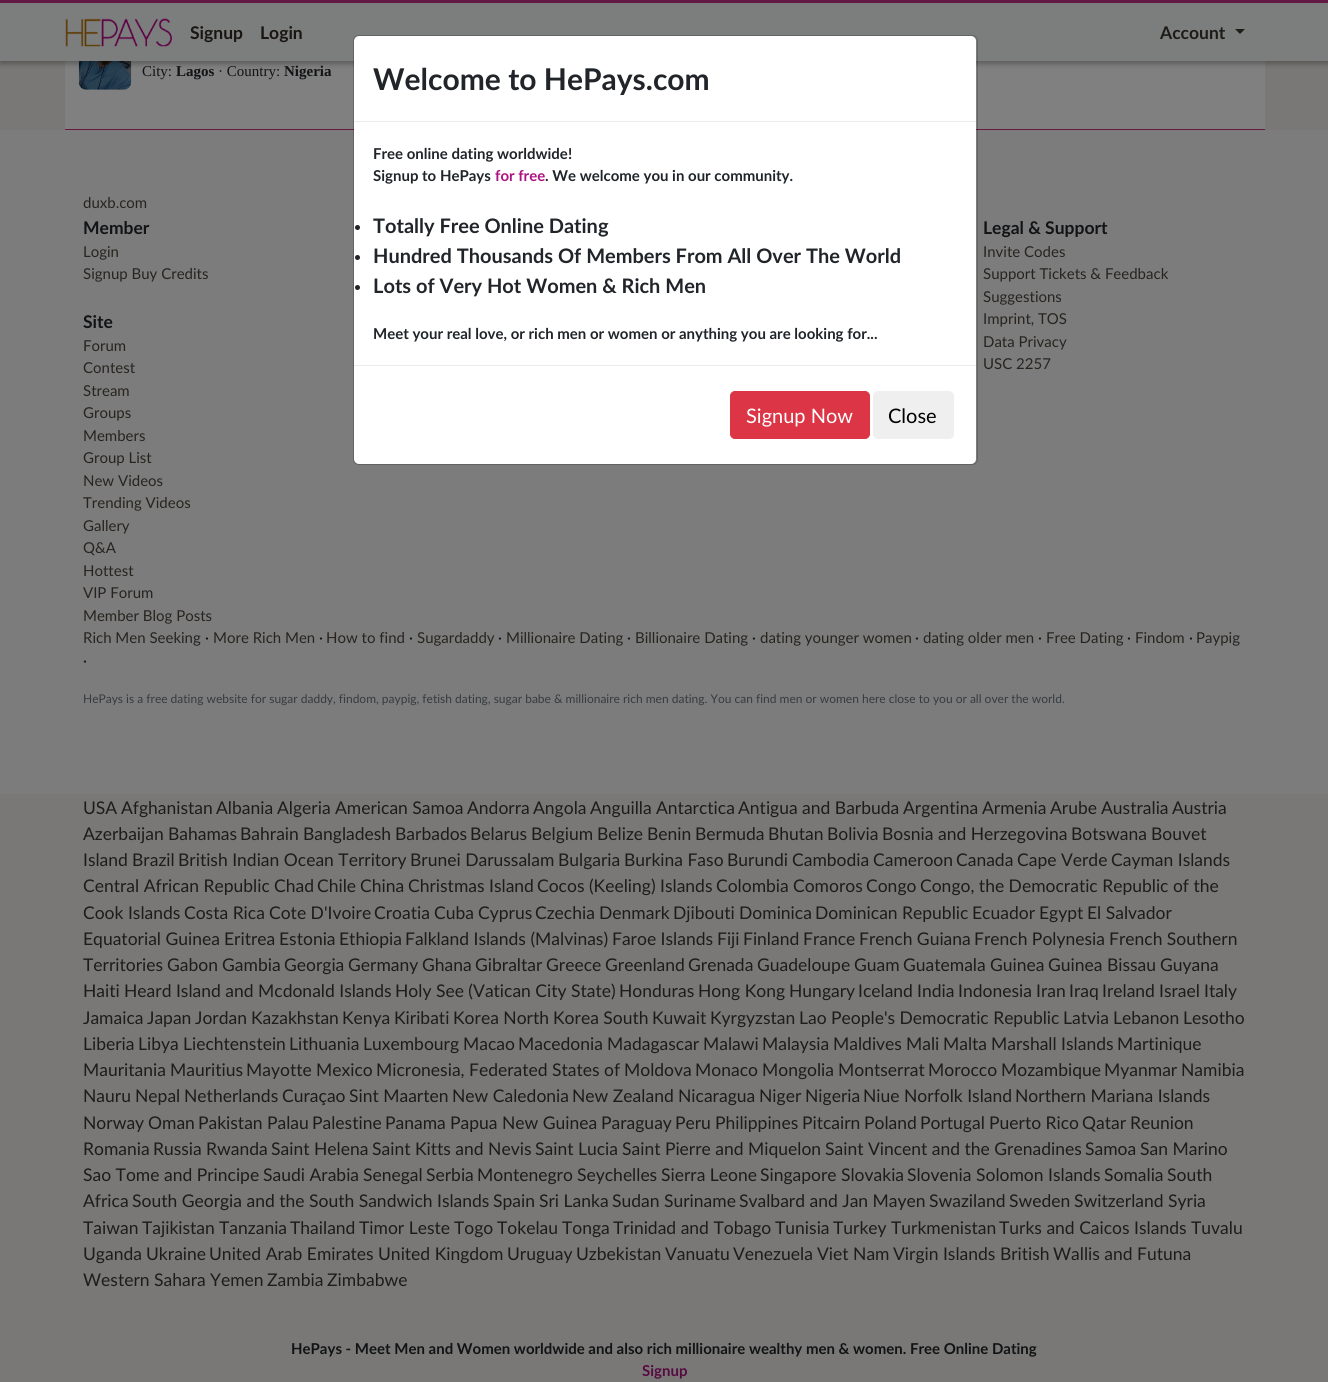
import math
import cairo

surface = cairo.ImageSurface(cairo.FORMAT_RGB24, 1328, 1382)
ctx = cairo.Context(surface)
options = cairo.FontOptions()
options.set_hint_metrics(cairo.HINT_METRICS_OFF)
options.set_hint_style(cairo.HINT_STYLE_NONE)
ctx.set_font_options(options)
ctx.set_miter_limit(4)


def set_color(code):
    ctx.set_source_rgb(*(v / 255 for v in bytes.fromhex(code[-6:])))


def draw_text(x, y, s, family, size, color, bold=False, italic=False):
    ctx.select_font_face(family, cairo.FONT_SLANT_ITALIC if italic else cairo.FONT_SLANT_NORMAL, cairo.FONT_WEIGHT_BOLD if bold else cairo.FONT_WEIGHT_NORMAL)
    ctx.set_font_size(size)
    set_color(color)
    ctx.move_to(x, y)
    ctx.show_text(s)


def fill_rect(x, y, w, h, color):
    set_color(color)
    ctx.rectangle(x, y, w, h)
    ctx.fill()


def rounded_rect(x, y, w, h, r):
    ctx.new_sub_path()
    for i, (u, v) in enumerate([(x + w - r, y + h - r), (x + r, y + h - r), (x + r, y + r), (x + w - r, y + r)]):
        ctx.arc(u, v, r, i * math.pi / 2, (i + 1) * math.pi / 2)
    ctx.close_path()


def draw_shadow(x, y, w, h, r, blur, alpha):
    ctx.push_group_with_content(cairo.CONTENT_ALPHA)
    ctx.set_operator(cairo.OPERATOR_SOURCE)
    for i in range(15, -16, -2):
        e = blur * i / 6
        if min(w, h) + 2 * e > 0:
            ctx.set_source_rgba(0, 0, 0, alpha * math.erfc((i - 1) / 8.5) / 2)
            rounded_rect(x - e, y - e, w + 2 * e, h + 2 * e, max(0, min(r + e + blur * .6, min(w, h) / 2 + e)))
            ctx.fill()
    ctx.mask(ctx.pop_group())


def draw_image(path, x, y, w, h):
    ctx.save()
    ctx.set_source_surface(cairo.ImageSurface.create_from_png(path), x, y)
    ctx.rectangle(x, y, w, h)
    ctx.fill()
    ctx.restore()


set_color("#797877")
ctx.paint()
fill_rect(65, 61, 1200, 68, "#808080")
draw_image("assets/img2.png", 78, 61, 54, 29)
set_color("#0a0a0a")
draw_shadow(0, 3, 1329, 61, 0, 2.5, 0.3)
fill_rect(0, 3, 1328, 58, "#7c7d7d")
fill_rect(0, 0, 1328, 3, "#621943")
draw_image("assets/img1.png", 65, 18, 107, 29)
draw_text(190, 39, "Signup", "Lato", 17.5, "#191612", bold=True)
draw_text(260, 39, "Login", "Lato", 17.5, "#191612", bold=True)
draw_text(1160, 39, "Account", "Lato", 17.5, "#1d1c18", bold=True)
set_color("#1d1c16")
ctx.new_path()
ctx.move_to(1235, 29)
ctx.line_to(1245, 29)
ctx.line_to(1240, 34)
ctx.close_path()
ctx.fill()
fill_rect(65, 129, 1200, 1, "#671940")
draw_text(142, 76, "City:", "Liberation Serif", 15, "#111315")
draw_text(176, 76, "Lagos", "Liberation Serif", 15, "#111315", bold=True)
draw_text(218, 76, "· Country:", "Liberation Serif", 15, "#111315")
draw_text(284, 76, "Nigeria", "Liberation Serif", 15, "#111315", bold=True)
fill_rect(0, 130, 1328, 664, "#7c7c7c")
set_color("#ffffff")
rounded_rect(354, 36, 622, 428, 5)
ctx.fill()
rounded_rect(353.5, 35.5, 624, 429, 5.5)
ctx.set_source_rgba(0, 0, 0, 0.2)
ctx.set_line_width(1)
ctx.stroke()
fill_rect(354, 121, 622, 1, "#e9ecef")
draw_text(373, 90, "Welcome to HePays.com", "Lato", 30, "#212529", bold=True)
draw_text(373, 159, "Free online dating worldwide!", "Lato", 15, "#212529", bold=True)
draw_text(373, 181, "Signup to HePays", "Lato", 15, "#212529", bold=True)
draw_text(495, 181, "for free", "Lato", 15, "#ac1382", bold=True)
draw_text(545, 181, ". We welcome you in our community.", "Lato", 15, "#212529", bold=True)
ctx.new_path()
ctx.arc(357.5, 227.5, 2.5, 0, 2 * math.pi)
ctx.fill()
draw_text(373, 233, "Totally Free Online Dating", "Lato", 20, "#212529", bold=True)
ctx.new_path()
ctx.arc(357.5, 257.5, 2.5, 0, 2 * math.pi)
ctx.fill()
draw_text(373, 263, "Hundred Thousands Of Members From All Over The World", "Lato", 20, "#212529", bold=True)
ctx.new_path()
ctx.arc(357.5, 287.5, 2.5, 0, 2 * math.pi)
ctx.fill()
draw_text(373, 293, "Lots of Very Hot Women & Rich Men", "Lato", 20, "#212529", bold=True)
draw_text(373, 339, "Meet your real love, or rich men or women or anything you are looking for...", "Lato", 15, "#212529", bold=True)
fill_rect(354, 365, 622, 1, "#e9ecef")
set_color("#dc3545")
rounded_rect(730.5, 391.5, 139, 47, 4.5)
ctx.fill_preserve()
ctx.stroke()
draw_text(746, 423, "Signup Now", "Lato", 20, "#ffffff")
set_color("#efefef")
rounded_rect(873, 391, 81, 48, 5)
ctx.fill()
draw_text(888, 423, "Close", "Lato", 20, "#000000")
draw_text(83, 208, "duxb.com", "Lato", 15, "#272420")
draw_text(83, 234, "Member", "Lato", 17.5, "#111315", bold=True)
draw_text(83, 257, "Login", "Lato", 15, "#272420")
draw_text(83, 279, "Signup Buy Credits", "Lato", 15, "#272420")
draw_text(83, 328, "Site", "Lato", 17.5, "#111315", bold=True)
draw_text(83, 351, "Forum", "Lato", 15, "#272420")
draw_text(83, 373, "Contest", "Lato", 15, "#272420")
draw_text(83, 396, "Stream", "Lato", 15, "#272420")
draw_text(83, 418, "Groups", "Lato", 15, "#272420")
draw_text(83, 441, "Members", "Lato", 15, "#272420")
draw_text(83, 463, "Group List", "Lato", 15, "#272420")
draw_text(83, 486, "New Videos", "Lato", 15, "#272420")
draw_text(83, 508, "Trending Videos", "Lato", 15, "#272420")
draw_text(83, 531, "Gallery", "Lato", 15, "#272420")
draw_text(83, 553, "Q&A", "Lato", 15, "#272420")
draw_text(83, 576, "Hottest", "Lato", 15, "#272420")
draw_text(83, 598, "VIP Forum", "Lato", 15, "#272420")
draw_text(83, 621, "Member Blog Posts", "Lato", 15, "#272420")
draw_text(983, 234, "Legal & Support", "Lato", 17.5, "#111315", bold=True)
draw_text(983, 257, "Invite Codes", "Lato", 15, "#272420")
draw_text(983, 279, "Support Tickets & Feedback", "Lato", 15, "#272420")
draw_text(983, 302, "Suggestions", "Lato", 15, "#272420")
draw_text(983, 324, "Imprint, TOS", "Lato", 15, "#272420")
draw_text(983, 347, "Data Privacy", "Lato", 15, "#272420")
draw_text(983, 369, "USC 2257", "Lato", 15, "#272420")
draw_text(83, 643, "Rich Men Seeking", "Lato", 15, "#272420")
draw_text(205, 643, "·", "Lato", 15, "#111315")
draw_text(213, 643, "More Rich Men", "Lato", 15, "#272420")
draw_text(319, 643, "·", "Lato", 15, "#111315")
draw_text(326, 643, "How to find", "Lato", 15, "#272420")
draw_text(409, 643, "·", "Lato", 15, "#111315")
draw_text(417, 643, "Sugardaddy", "Lato", 15, "#272420")
draw_text(498, 643, "·", "Lato", 15, "#111315")
draw_text(506, 643, "Millionaire Dating", "Lato", 15, "#272420")
draw_text(627, 643, "·", "Lato", 15, "#111315")
draw_text(635, 643, "Billionaire Dating", "Lato", 15, "#272420")
draw_text(752, 643, "·", "Lato", 15, "#111315")
draw_text(760, 643, "dating younger women", "Lato", 15, "#272420")
draw_text(915, 643, "·", "Lato", 15, "#111315")
draw_text(923, 643, "dating older men", "Lato", 15, "#272420")
draw_text(1038, 643, "·", "Lato", 15, "#111315")
draw_text(1046, 643, "Free Dating", "Lato", 15, "#272420")
draw_text(1127, 643, "·", "Lato", 15, "#111315")
draw_text(1135, 643, "Findom", "Lato", 15, "#272420")
draw_text(1189, 643, "·", "Lato", 15, "#111315")
draw_text(1196, 643, "Paypig", "Lato", 15, "#272420")
draw_text(83, 666, "·", "Lato", 15, "#111315")
draw_text(83, 703, "HePays is a free dating website for sugar daddy, findom, paypig, fetish dating, sugar babe & millionaire rich men dating. You can find men or women here close to you or all over the world.", "Lato", 12, "#363b3f")
draw_text(83, 814, "USA", "Lato", 17.5, "#1d1c18")
draw_text(121, 814, "Afghanistan", "Lato", 17.5, "#1d1c18")
draw_text(216, 814, "Albania", "Lato", 17.5, "#1d1c18")
draw_text(277, 814, "Algeria", "Lato", 17.5, "#1d1c18")
draw_text(335, 814, "American Samoa", "Lato", 17.5, "#1d1c18")
draw_text(467, 814, "Andorra", "Lato", 17.5, "#1d1c18")
draw_text(533, 814, "Angola", "Lato", 17.5, "#1d1c18")
draw_text(590, 814, "Anguilla", "Lato", 17.5, "#1d1c18")
draw_text(656, 814, "Antarctica", "Lato", 17.5, "#1d1c18")
draw_text(738, 814, "Antigua and Barbuda", "Lato", 17.5, "#1d1c18")
draw_text(903, 814, "Argentina", "Lato", 17.5, "#1d1c18")
draw_text(982, 814, "Armenia", "Lato", 17.5, "#1d1c18")
draw_text(1050, 814, "Arube", "Lato", 17.5, "#1d1c18")
draw_text(1101, 814, "Australia", "Lato", 17.5, "#1d1c18")
draw_text(1172, 814, "Austria", "Lato", 17.5, "#1d1c18")
draw_text(83, 840, "Azerbaijan", "Lato", 17.5, "#1d1c18")
draw_text(168, 840, "Bahamas", "Lato", 17.5, "#1d1c18")
draw_text(240, 840, "Bahrain", "Lato", 17.5, "#1d1c18")
draw_text(303, 840, "Bangladesh", "Lato", 17.5, "#1d1c18")
draw_text(395, 840, "Barbados", "Lato", 17.5, "#1d1c18")
draw_text(470, 840, "Belarus", "Lato", 17.5, "#1d1c18")
draw_text(531, 840, "Belgium", "Lato", 17.5, "#1d1c18")
draw_text(597, 840, "Belize", "Lato", 17.5, "#1d1c18")
draw_text(647, 840, "Benin", "Lato", 17.5, "#1d1c18")
draw_text(695, 840, "Bermuda", "Lato", 17.5, "#1d1c18")
draw_text(768, 840, "Bhutan", "Lato", 17.5, "#1d1c18")
draw_text(827, 840, "Bolivia", "Lato", 17.5, "#1d1c18")
draw_text(882, 840, "Bosnia and Herzegovina", "Lato", 17.5, "#1d1c18")
draw_text(1071, 840, "Botswana", "Lato", 17.5, "#1d1c18")
draw_text(1151, 840, "Bouvet", "Lato", 17.5, "#1d1c18")
draw_text(83, 866, "Island", "Lato", 17.5, "#1d1c18")
draw_text(132, 866, "Brazil", "Lato", 17.5, "#1d1c18")
draw_text(178, 866, "British Indian Ocean Territory", "Lato", 17.5, "#1d1c18")
draw_text(410, 866, "Brunei Darussalam", "Lato", 17.5, "#1d1c18")
draw_text(558, 866, "Bulgaria", "Lato", 17.5, "#1d1c18")
draw_text(624, 866, "Burkina Faso", "Lato", 17.5, "#1d1c18")
draw_text(727, 866, "Burundi", "Lato", 17.5, "#1d1c18")
draw_text(792, 866, "Cambodia", "Lato", 17.5, "#1d1c18")
draw_text(873, 866, "Cameroon", "Lato", 17.5, "#1d1c18")
draw_text(956, 866, "Canada", "Lato", 17.5, "#1d1c18")
draw_text(1017, 866, "Cape Verde", "Lato", 17.5, "#1d1c18")
draw_text(1111, 866, "Cayman Islands", "Lato", 17.5, "#1d1c18")
draw_text(83, 892, "Central African Republic", "Lato", 17.5, "#1d1c18")
draw_text(274, 892, "Chad", "Lato", 17.5, "#1d1c18")
draw_text(317, 892, "Chile", "Lato", 17.5, "#1d1c18")
draw_text(360, 892, "China", "Lato", 17.5, "#1d1c18")
draw_text(408, 892, "Christmas Island", "Lato", 17.5, "#1d1c18")
draw_text(537, 892, "Cocos (Keeling) Islands", "Lato", 17.5, "#1d1c18")
draw_text(716, 892, "Colombia", "Lato", 17.5, "#1d1c18")
draw_text(793, 892, "Comoros", "Lato", 17.5, "#1d1c18")
draw_text(866, 892, "Congo", "Lato", 17.5, "#1d1c18")
draw_text(920, 892, "Congo, the Democratic Republic of the", "Lato", 17.5, "#1d1c18")
draw_text(83, 919, "Cook Islands", "Lato", 17.5, "#1d1c18")
draw_text(184, 919, "Costa Rica", "Lato", 17.5, "#1d1c18")
draw_text(269, 919, "Cote D'Ivoire", "Lato", 17.5, "#1d1c18")
draw_text(374, 919, "Croatia", "Lato", 17.5, "#1d1c18")
draw_text(434, 919, "Cuba", "Lato", 17.5, "#1d1c18")
draw_text(478, 919, "Cyprus", "Lato", 17.5, "#1d1c18")
draw_text(535, 919, "Czechia", "Lato", 17.5, "#1d1c18")
draw_text(599, 919, "Denmark", "Lato", 17.5, "#1d1c18")
draw_text(673, 919, "Djibouti", "Lato", 17.5, "#1d1c18")
draw_text(739, 919, "Dominica", "Lato", 17.5, "#1d1c18")
draw_text(815, 919, "Dominican Republic", "Lato", 17.5, "#1d1c18")
draw_text(972, 919, "Ecuador", "Lato", 17.5, "#1d1c18")
draw_text(1039, 919, "Egypt", "Lato", 17.5, "#1d1c18")
draw_text(1087, 919, "El Salvador", "Lato", 17.5, "#1d1c18")
draw_text(83, 945, "Equatorial Guinea", "Lato", 17.5, "#1d1c18")
draw_text(224, 945, "Eritrea", "Lato", 17.5, "#1d1c18")
draw_text(279, 945, "Estonia", "Lato", 17.5, "#1d1c18")
draw_text(339, 945, "Ethiopia", "Lato", 17.5, "#1d1c18")
draw_text(405, 945, "Falkland Islands (Malvinas)", "Lato", 17.5, "#1d1c18")
draw_text(612, 945, "Faroe Islands", "Lato", 17.5, "#1d1c18")
draw_text(717, 945, "Fiji", "Lato", 17.5, "#1d1c18")
draw_text(743, 945, "Finland", "Lato", 17.5, "#1d1c18")
draw_text(803, 945, "France", "Lato", 17.5, "#1d1c18")
draw_text(859, 945, "French Guiana", "Lato", 17.5, "#1d1c18")
draw_text(974, 945, "French Polynesia", "Lato", 17.5, "#1d1c18")
draw_text(1109, 945, "French Southern", "Lato", 17.5, "#1d1c18")
draw_text(83, 971, "Territories", "Lato", 17.5, "#1d1c18")
draw_text(167, 971, "Gabon", "Lato", 17.5, "#1d1c18")
draw_text(222, 971, "Gambia", "Lato", 17.5, "#1d1c18")
draw_text(284, 971, "Georgia", "Lato", 17.5, "#1d1c18")
draw_text(348, 971, "Germany", "Lato", 17.5, "#1d1c18")
draw_text(422, 971, "Ghana", "Lato", 17.5, "#1d1c18")
draw_text(475, 971, "Gibraltar", "Lato", 17.5, "#1d1c18")
draw_text(546, 971, "Greece", "Lato", 17.5, "#1d1c18")
draw_text(605, 971, "Greenland", "Lato", 17.5, "#1d1c18")
draw_text(688, 971, "Grenada", "Lato", 17.5, "#1d1c18")
draw_text(757, 971, "Guadeloupe", "Lato", 17.5, "#1d1c18")
draw_text(854, 971, "Guam", "Lato", 17.5, "#1d1c18")
draw_text(903, 971, "Guatemala", "Lato", 17.5, "#1d1c18")
draw_text(990, 971, "Guinea", "Lato", 17.5, "#1d1c18")
draw_text(1048, 971, "Guinea Bissau", "Lato", 17.5, "#1d1c18")
draw_text(1160, 971, "Guyana", "Lato", 17.5, "#1d1c18")
draw_text(83, 997, "Haiti", "Lato", 17.5, "#1d1c18")
draw_text(124, 997, "Heard Island and Mcdonald Islands", "Lato", 17.5, "#1d1c18")
draw_text(395, 997, "Holy See (Vatican City State)", "Lato", 17.5, "#1d1c18")
draw_text(619, 997, "Honduras", "Lato", 17.5, "#1d1c18")
draw_text(698, 997, "Hong Kong", "Lato", 17.5, "#1d1c18")
draw_text(789, 997, "Hungary", "Lato", 17.5, "#1d1c18")
draw_text(858, 997, "Iceland", "Lato", 17.5, "#1d1c18")
draw_text(917, 997, "India", "Lato", 17.5, "#1d1c18")
draw_text(958, 997, "Indonesia", "Lato", 17.5, "#1d1c18")
draw_text(1036, 997, "Iran", "Lato", 17.5, "#1d1c18")
draw_text(1069, 997, "Iraq", "Lato", 17.5, "#1d1c18")
draw_text(1102, 997, "Ireland", "Lato", 17.5, "#1d1c18")
draw_text(1159, 997, "Israel", "Lato", 17.5, "#1d1c18")
draw_text(1204, 997, "Italy", "Lato", 17.5, "#1d1c18")
draw_text(83, 1024, "Jamaica", "Lato", 17.5, "#1d1c18")
draw_text(147, 1024, "Japan", "Lato", 17.5, "#1d1c18")
draw_text(195, 1024, "Jordan", "Lato", 17.5, "#1d1c18")
draw_text(251, 1024, "Kazakhstan", "Lato", 17.5, "#1d1c18")
draw_text(342, 1024, "Kenya", "Lato", 17.5, "#1d1c18")
draw_text(394, 1024, "Kiribati", "Lato", 17.5, "#1d1c18")
draw_text(453, 1024, "Korea North", "Lato", 17.5, "#1d1c18")
draw_text(553, 1024, "Korea South", "Lato", 17.5, "#1d1c18")
draw_text(652, 1024, "Kuwait", "Lato", 17.5, "#1d1c18")
draw_text(710, 1024, "Kyrgyzstan", "Lato", 17.5, "#1d1c18")
draw_text(799, 1024, "Lao People's Democratic Republic", "Lato", 17.5, "#1d1c18")
draw_text(1063, 1024, "Latvia", "Lato", 17.5, "#1d1c18")
draw_text(1113, 1024, "Lebanon", "Lato", 17.5, "#1d1c18")
draw_text(1183, 1024, "Lesotho", "Lato", 17.5, "#1d1c18")
draw_text(83, 1050, "Liberia", "Lato", 17.5, "#1d1c18")
draw_text(138, 1050, "Libya", "Lato", 17.5, "#1d1c18")
draw_text(183, 1050, "Liechtenstein", "Lato", 17.5, "#1d1c18")
draw_text(289, 1050, "Lithuania", "Lato", 17.5, "#1d1c18")
draw_text(363, 1050, "Luxembourg", "Lato", 17.5, "#1d1c18")
draw_text(463, 1050, "Macao", "Lato", 17.5, "#1d1c18")
draw_text(518, 1050, "Macedonia", "Lato", 17.5, "#1d1c18")
draw_text(607, 1050, "Madagascar", "Lato", 17.5, "#1d1c18")
draw_text(703, 1050, "Malawi", "Lato", 17.5, "#1d1c18")
draw_text(762, 1050, "Malaysia", "Lato", 17.5, "#1d1c18")
draw_text(833, 1050, "Maldives", "Lato", 17.5, "#1d1c18")
draw_text(906, 1050, "Mali", "Lato", 17.5, "#1d1c18")
draw_text(943, 1050, "Malta", "Lato", 17.5, "#1d1c18")
draw_text(991, 1050, "Marshall Islands", "Lato", 17.5, "#1d1c18")
draw_text(1117, 1050, "Martinique", "Lato", 17.5, "#1d1c18")
draw_text(83, 1076, "Mauritania", "Lato", 17.5, "#1d1c18")
draw_text(170, 1076, "Mauritius", "Lato", 17.5, "#1d1c18")
draw_text(246, 1076, "Mayotte", "Lato", 17.5, "#1d1c18")
draw_text(316, 1076, "Mexico", "Lato", 17.5, "#1d1c18")
draw_text(376, 1076, "Micronesia, Federated States of", "Lato", 17.5, "#1d1c18")
draw_text(624, 1076, "Moldova", "Lato", 17.5, "#1d1c18")
draw_text(695, 1076, "Monaco", "Lato", 17.5, "#1d1c18")
draw_text(762, 1076, "Mongolia", "Lato", 17.5, "#1d1c18")
draw_text(838, 1076, "Montserrat", "Lato", 17.5, "#1d1c18")
draw_text(928, 1076, "Morocco", "Lato", 17.5, "#1d1c18")
draw_text(1001, 1076, "Mozambique", "Lato", 17.5, "#1d1c18")
draw_text(1104, 1076, "Myanmar", "Lato", 17.5, "#1d1c18")
draw_text(1181, 1076, "Namibia", "Lato", 17.5, "#1d1c18")
draw_text(83, 1102, "Nauru", "Lato", 17.5, "#1d1c18")
draw_text(135, 1102, "Nepal", "Lato", 17.5, "#1d1c18")
draw_text(184, 1102, "Netherlands", "Lato", 17.5, "#1d1c18")
draw_text(282, 1102, "Curaçao", "Lato", 17.5, "#1d1c18")
draw_text(349, 1102, "Sint Maarten", "Lato", 17.5, "#1d1c18")
draw_text(452, 1102, "New Caledonia", "Lato", 17.5, "#1d1c18")
draw_text(572, 1102, "New Zealand", "Lato", 17.5, "#1d1c18")
draw_text(678, 1102, "Nicaragua", "Lato", 17.5, "#1d1c18")
draw_text(759, 1102, "Niger", "Lato", 17.5, "#1d1c18")
draw_text(805, 1102, "Nigeria", "Lato", 17.5, "#1d1c18")
draw_text(863, 1102, "Niue", "Lato", 17.5, "#1d1c18")
draw_text(904, 1102, "Norfolk Island", "Lato", 17.5, "#1d1c18")
draw_text(1015, 1102, "Northern Mariana Islands", "Lato", 17.5, "#1d1c18")
draw_text(83, 1129, "Norway", "Lato", 17.5, "#1d1c18")
draw_text(148, 1129, "Oman", "Lato", 17.5, "#1d1c18")
draw_text(198, 1129, "Pakistan", "Lato", 17.5, "#1d1c18")
draw_text(267, 1129, "Palau", "Lato", 17.5, "#1d1c18")
draw_text(312, 1129, "Palestine", "Lato", 17.5, "#1d1c18")
draw_text(385, 1129, "Panama", "Lato", 17.5, "#1d1c18")
draw_text(450, 1129, "Papua New Guinea", "Lato", 17.5, "#1d1c18")
draw_text(601, 1129, "Paraguay", "Lato", 17.5, "#1d1c18")
draw_text(675, 1129, "Peru", "Lato", 17.5, "#1d1c18")
draw_text(715, 1129, "Philippines", "Lato", 17.5, "#1d1c18")
draw_text(802, 1129, "Pitcairn", "Lato", 17.5, "#1d1c18")
draw_text(864, 1129, "Poland", "Lato", 17.5, "#1d1c18")
draw_text(920, 1129, "Portugal", "Lato", 17.5, "#1d1c18")
draw_text(989, 1129, "Puerto Rico", "Lato", 17.5, "#1d1c18")
draw_text(1082, 1129, "Qatar", "Lato", 17.5, "#1d1c18")
draw_text(1130, 1129, "Reunion", "Lato", 17.5, "#1d1c18")
draw_text(83, 1155, "Romania", "Lato", 17.5, "#1d1c18")
draw_text(153, 1155, "Russia", "Lato", 17.5, "#1d1c18")
draw_text(206, 1155, "Rwanda", "Lato", 17.5, "#1d1c18")
draw_text(271, 1155, "Saint Helena", "Lato", 17.5, "#1d1c18")
draw_text(372, 1155, "Saint Kitts and Nevis", "Lato", 17.5, "#1d1c18")
draw_text(535, 1155, "Saint Lucia", "Lato", 17.5, "#1d1c18")
draw_text(622, 1155, "Saint Pierre and Miquelon", "Lato", 17.5, "#1d1c18")
draw_text(825, 1155, "Saint Vincent and the Grenadines", "Lato", 17.5, "#1d1c18")
draw_text(1085, 1155, "Samoa", "Lato", 17.5, "#1d1c18")
draw_text(1140, 1155, "San Marino", "Lato", 17.5, "#1d1c18")
draw_text(83, 1181, "Sao Tome and Principe", "Lato", 17.5, "#1d1c18")
draw_text(263, 1181, "Saudi Arabia", "Lato", 17.5, "#1d1c18")
draw_text(363, 1181, "Senegal", "Lato", 17.5, "#1d1c18")
draw_text(426, 1181, "Serbia", "Lato", 17.5, "#1d1c18")
draw_text(477, 1181, "Montenegro", "Lato", 17.5, "#1d1c18")
draw_text(577, 1181, "Seychelles", "Lato", 17.5, "#1d1c18")
draw_text(661, 1181, "Sierra Leone", "Lato", 17.5, "#1d1c18")
draw_text(760, 1181, "Singapore", "Lato", 17.5, "#1d1c18")
draw_text(841, 1181, "Slovakia", "Lato", 17.5, "#1d1c18")
draw_text(907, 1181, "Slovenia", "Lato", 17.5, "#1d1c18")
draw_text(976, 1181, "Solomon Islands", "Lato", 17.5, "#1d1c18")
draw_text(1104, 1181, "Somalia", "Lato", 17.5, "#1d1c18")
draw_text(1167, 1181, "South", "Lato", 17.5, "#1d1c18")
draw_text(83, 1207, "Africa", "Lato", 17.5, "#1d1c18")
draw_text(132, 1207, "South Georgia and the South Sandwich Islands", "Lato", 17.5, "#1d1c18")
draw_text(493, 1207, "Spain", "Lato", 17.5, "#1d1c18")
draw_text(539, 1207, "Sri Lanka", "Lato", 17.5, "#1d1c18")
draw_text(612, 1207, "Sudan", "Lato", 17.5, "#1d1c18")
draw_text(664, 1207, "Suriname", "Lato", 17.5, "#1d1c18")
draw_text(739, 1207, "Svalbard and Jan Mayen", "Lato", 17.5, "#1d1c18")
draw_text(929, 1207, "Swaziland", "Lato", 17.5, "#1d1c18")
draw_text(1009, 1207, "Sweden", "Lato", 17.5, "#1d1c18")
draw_text(1074, 1207, "Switzerland", "Lato", 17.5, "#1d1c18")
draw_text(1168, 1207, "Syria", "Lato", 17.5, "#1d1c18")
draw_text(83, 1234, "Taiwan", "Lato", 17.5, "#1d1c18")
draw_text(142, 1234, "Tajikistan", "Lato", 17.5, "#1d1c18")
draw_text(219, 1234, "Tanzania", "Lato", 17.5, "#1d1c18")
draw_text(290, 1234, "Thailand", "Lato", 17.5, "#1d1c18")
draw_text(359, 1234, "Timor Leste", "Lato", 17.5, "#1d1c18")
draw_text(454, 1234, "Togo", "Lato", 17.5, "#1d1c18")
draw_text(497, 1234, "Tokelau", "Lato", 17.5, "#1d1c18")
draw_text(562, 1234, "Tonga", "Lato", 17.5, "#1d1c18")
draw_text(613, 1234, "Trinidad and Tobago", "Lato", 17.5, "#1d1c18")
draw_text(775, 1234, "Tunisia", "Lato", 17.5, "#1d1c18")
draw_text(833, 1234, "Turkey", "Lato", 17.5, "#1d1c18")
draw_text(891, 1234, "Turkmenistan", "Lato", 17.5, "#1d1c18")
draw_text(999, 1234, "Turks and Caicos Islands", "Lato", 17.5, "#1d1c18")
draw_text(1191, 1234, "Tuvalu", "Lato", 17.5, "#1d1c18")
draw_text(83, 1260, "Uganda", "Lato", 17.5, "#1d1c18")
draw_text(146, 1260, "Ukraine", "Lato", 17.5, "#1d1c18")
draw_text(209, 1260, "United Arab Emirates", "Lato", 17.5, "#1d1c18")
draw_text(378, 1260, "United Kingdom", "Lato", 17.5, "#1d1c18")
draw_text(507, 1260, "Uruguay", "Lato", 17.5, "#1d1c18")
draw_text(576, 1260, "Uzbekistan", "Lato", 17.5, "#1d1c18")
draw_text(665, 1260, "Vanuatu", "Lato", 17.5, "#1d1c18")
draw_text(733, 1260, "Venezuela", "Lato", 17.5, "#1d1c18")
draw_text(817, 1260, "Viet Nam", "Lato", 17.5, "#1d1c18")
draw_text(893, 1260, "Virgin Islands British", "Lato", 17.5, "#1d1c18")
draw_text(1053, 1260, "Wallis and Futuna", "Lato", 17.5, "#1d1c18")
draw_text(83, 1286, "Western Sahara", "Lato", 17.5, "#1d1c18")
draw_text(210, 1286, "Yemen", "Lato", 17.5, "#1d1c18")
draw_text(267, 1286, "Zambia", "Lato", 17.5, "#1d1c18")
draw_text(327, 1286, "Zimbabwe", "Lato", 17.5, "#1d1c18")
draw_text(291, 1354, "HePays - Meet Men and Women worldwide and also rich millionaire wealthy men & women. Free Online Dating", "Lato", 15, "#111315", bold=True)
draw_text(642, 1376, "Signup", "Lato", 15, "#560a41", bold=True)
surface.write_to_png("output.png")
